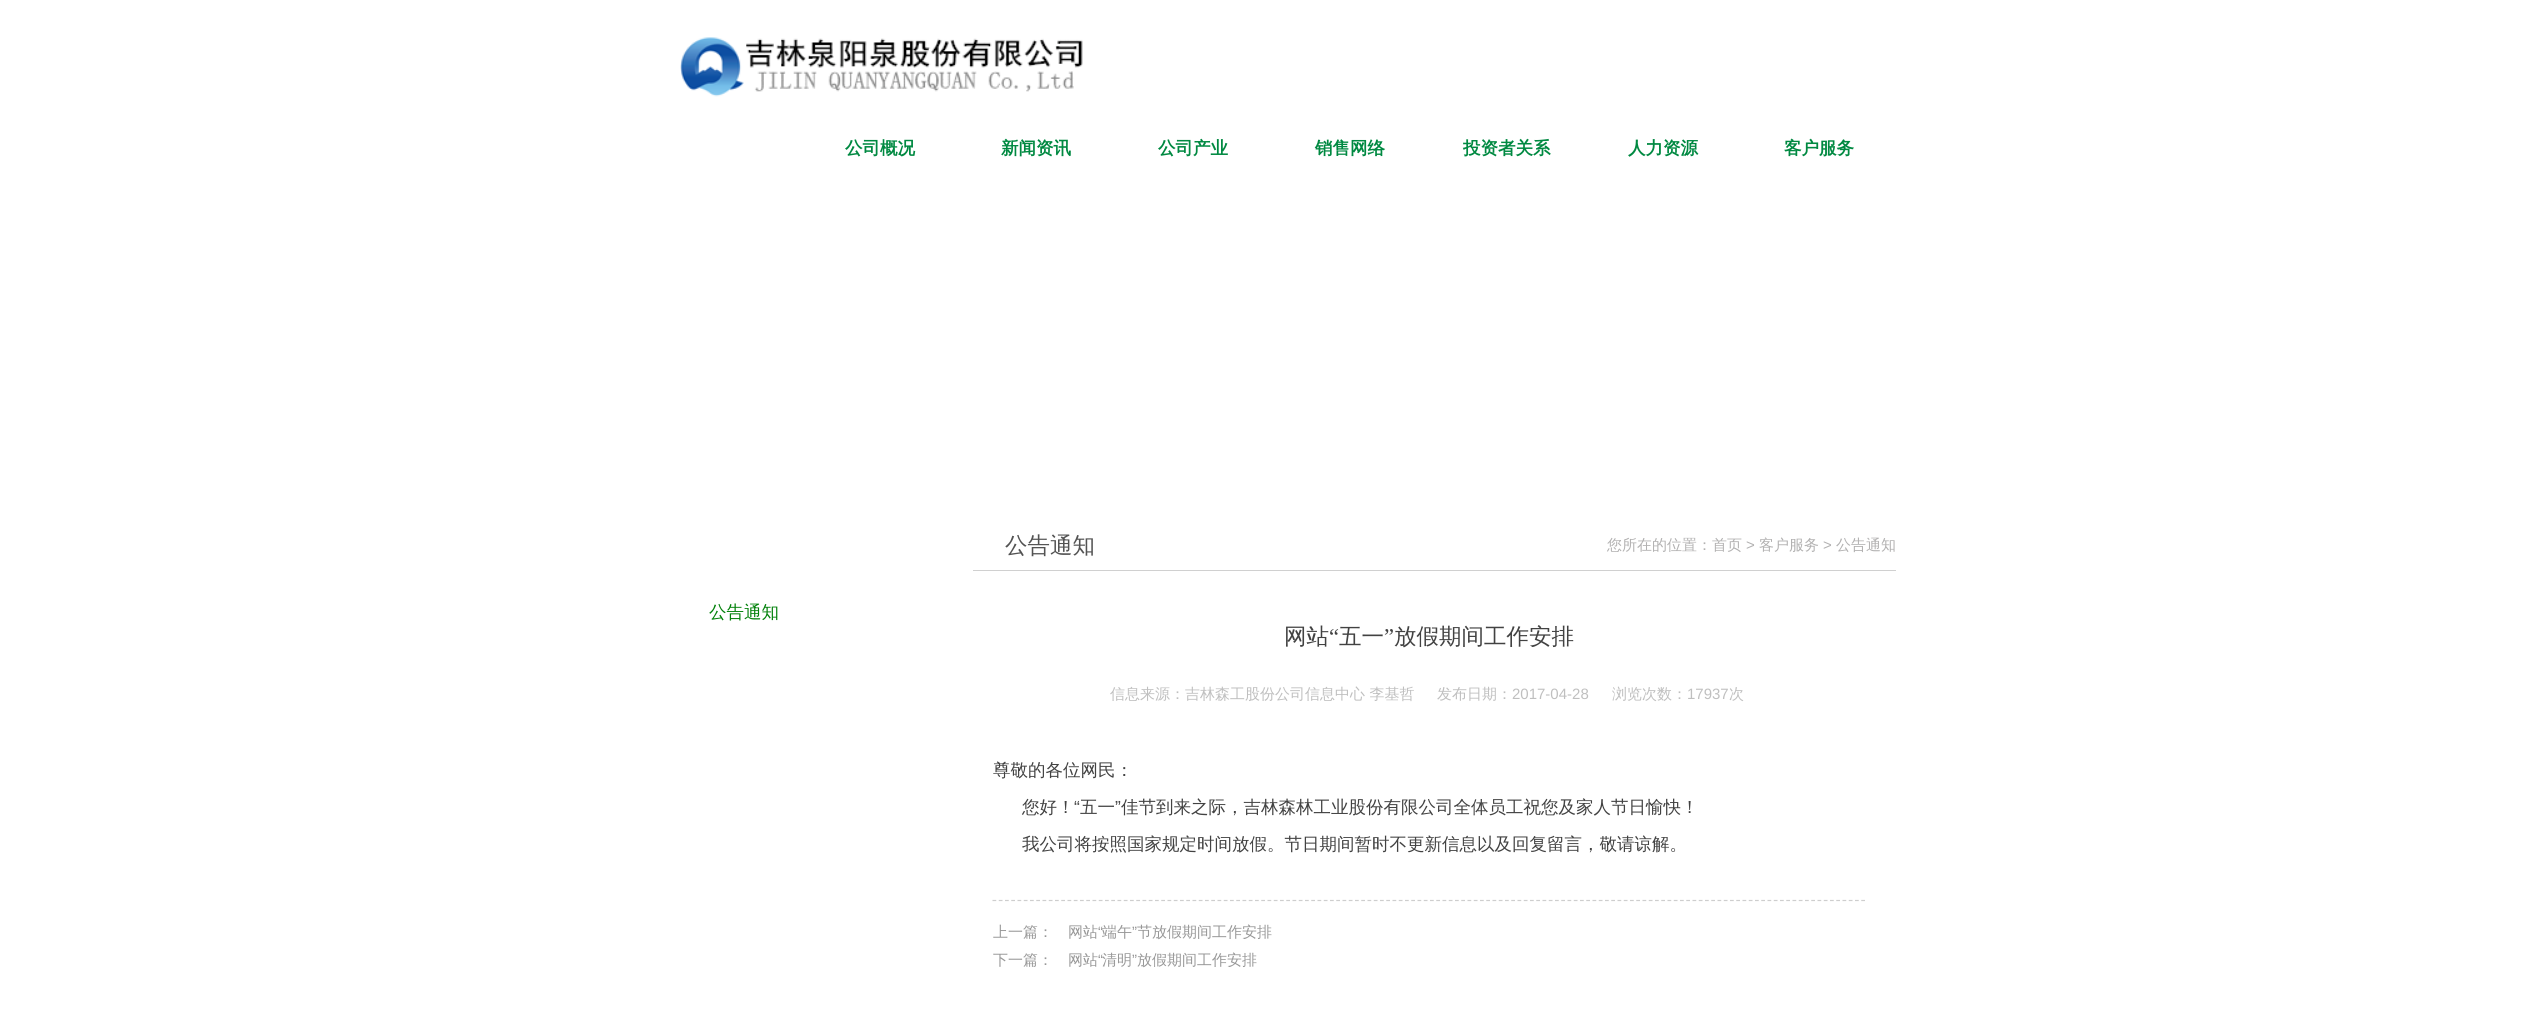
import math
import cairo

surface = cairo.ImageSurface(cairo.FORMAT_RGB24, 2542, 1032)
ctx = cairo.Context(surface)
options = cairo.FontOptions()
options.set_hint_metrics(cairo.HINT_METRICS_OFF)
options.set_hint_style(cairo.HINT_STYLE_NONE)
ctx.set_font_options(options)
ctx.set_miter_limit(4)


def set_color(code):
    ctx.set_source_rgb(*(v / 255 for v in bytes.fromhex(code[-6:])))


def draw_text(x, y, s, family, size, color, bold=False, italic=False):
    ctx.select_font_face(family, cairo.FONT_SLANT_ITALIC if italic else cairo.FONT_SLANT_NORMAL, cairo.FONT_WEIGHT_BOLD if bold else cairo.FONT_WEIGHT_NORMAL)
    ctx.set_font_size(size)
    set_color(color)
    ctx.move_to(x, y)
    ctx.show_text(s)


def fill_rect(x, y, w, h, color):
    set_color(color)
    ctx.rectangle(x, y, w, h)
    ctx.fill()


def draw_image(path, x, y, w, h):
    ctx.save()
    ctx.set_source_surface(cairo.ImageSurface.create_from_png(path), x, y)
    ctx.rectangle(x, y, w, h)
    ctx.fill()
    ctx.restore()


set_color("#ffffff")
ctx.paint()
draw_image("assets/img1.png", 680, 37, 403, 60)
draw_text(845, 154, "公司概况", "WenQuanYi Zen Hei", 17.5, "#008941", bold=True)
draw_text(1001, 154, "新闻资讯", "WenQuanYi Zen Hei", 17.5, "#008941", bold=True)
draw_text(1158, 154, "公司产业", "WenQuanYi Zen Hei", 17.5, "#008941", bold=True)
draw_text(1315, 154, "销售网络", "WenQuanYi Zen Hei", 17.5, "#008941", bold=True)
draw_text(1463, 154, "投资者关系", "WenQuanYi Zen Hei", 17.5, "#008941", bold=True)
draw_text(1628, 154, "人力资源", "WenQuanYi Zen Hei", 17.5, "#008941", bold=True)
draw_text(1784, 154, "客户服务", "WenQuanYi Zen Hei", 17.5, "#008941", bold=True)
draw_text(709, 618, "公告通知", "WenQuanYi Zen Hei Medium", 17.5, "#02810a")
fill_rect(973, 570, 923, 1, "#d0d0d0")
draw_text(1005, 553, "公告通知", "WenQuanYi Zen Hei Medium", 22.5, "#535353")
draw_text(1607, 550, "您所在的位置：首页", "WenQuanYi Zen Hei Medium", 15, "#b2b1b1")
draw_text(1746, 550, ">", "Liberation Sans", 15, "#b2b1b1")
draw_text(1759, 550, "客户服务", "WenQuanYi Zen Hei Medium", 15, "#b2b1b1")
draw_text(1823, 550, ">", "Liberation Sans", 15, "#b2b1b1")
draw_text(1836, 550, "公告通知", "WenQuanYi Zen Hei Medium", 15, "#b2b1b1")
draw_text(1284, 644, "网站", "WenQuanYi Zen Hei Medium", 22.5, "#424242")
draw_text(1329, 644, "“", "Liberation Serif", 22.5, "#424242")
draw_text(1339, 644, "五一", "WenQuanYi Zen Hei Medium", 22.5, "#424242")
draw_text(1384, 644, "”", "Liberation Serif", 22.5, "#424242")
draw_text(1394, 644, "放假期间工作安排", "WenQuanYi Zen Hei Medium", 22.5, "#424242")
draw_text(1110, 699, "信息来源：吉林森工股份公司信息中心 李基哲", "WenQuanYi Zen Hei Medium", 15, "#bfbfbf")
draw_text(1437, 699, "发布日期：", "WenQuanYi Zen Hei Medium", 15, "#bfbfbf")
draw_text(1512, 699, "2017-04-28", "Liberation Sans", 15, "#bfbfbf")
draw_text(1612, 699, "浏览次数：", "WenQuanYi Zen Hei Medium", 15, "#bfbfbf")
draw_text(1687, 699, "17937", "Liberation Sans", 15, "#bfbfbf")
draw_text(1729, 699, "次", "WenQuanYi Zen Hei Medium", 15, "#bfbfbf")
draw_text(993, 776, "尊敬的各位网民：", "WenQuanYi Zen Hei Medium", 17.5, "#424242")
draw_text(1022, 813, "您好！", "WenQuanYi Zen Hei Medium", 17.5, "#424242")
draw_text(1074, 813, "“", "Liberation Sans", 17.5, "#424242")
draw_text(1080, 813, "五一", "WenQuanYi Zen Hei Medium", 17.5, "#424242")
draw_text(1115, 813, "”", "Liberation Sans", 17.5, "#424242")
draw_text(1121, 813, "佳节到来之际，吉林森林工业股份有限公司全体员工祝您及家人节日愉快！", "WenQuanYi Zen Hei Medium", 17.5, "#424242")
draw_text(1022, 850, "我公司将按照国家规定时间放假。节日期间暂时不更新信息以及回复留言，敬请谅解。", "WenQuanYi Zen Hei Medium", 17.5, "#424242")
ctx.new_path()
ctx.move_to(992.5, 900.5)
ctx.line_to(1865, 900.5)
set_color("#cecece")
ctx.set_line_width(1.2)
ctx.set_dash([3.75, 2.5])
ctx.stroke()
draw_text(993, 937, "上一篇：", "WenQuanYi Zen Hei Medium", 15, "#989898")
draw_text(1068, 937, "网站", "WenQuanYi Zen Hei Medium", 15, "#989898")
draw_text(1098, 937, "“", "Liberation Sans", 15, "#989898")
draw_text(1102, 937, "端午", "WenQuanYi Zen Hei Medium", 15, "#989898")
draw_text(1132, 937, "”", "Liberation Sans", 15, "#989898")
draw_text(1137, 937, "节放假期间工作安排", "WenQuanYi Zen Hei Medium", 15, "#989898")
draw_text(993, 965, "下一篇：", "WenQuanYi Zen Hei Medium", 15, "#989898")
draw_text(1068, 965, "网站", "WenQuanYi Zen Hei Medium", 15, "#989898")
draw_text(1098, 965, "“", "Liberation Sans", 15, "#989898")
draw_text(1102, 965, "清明", "WenQuanYi Zen Hei Medium", 15, "#989898")
draw_text(1132, 965, "”", "Liberation Sans", 15, "#989898")
draw_text(1137, 965, "放假期间工作安排", "WenQuanYi Zen Hei Medium", 15, "#989898")
surface.write_to_png("output.png")
